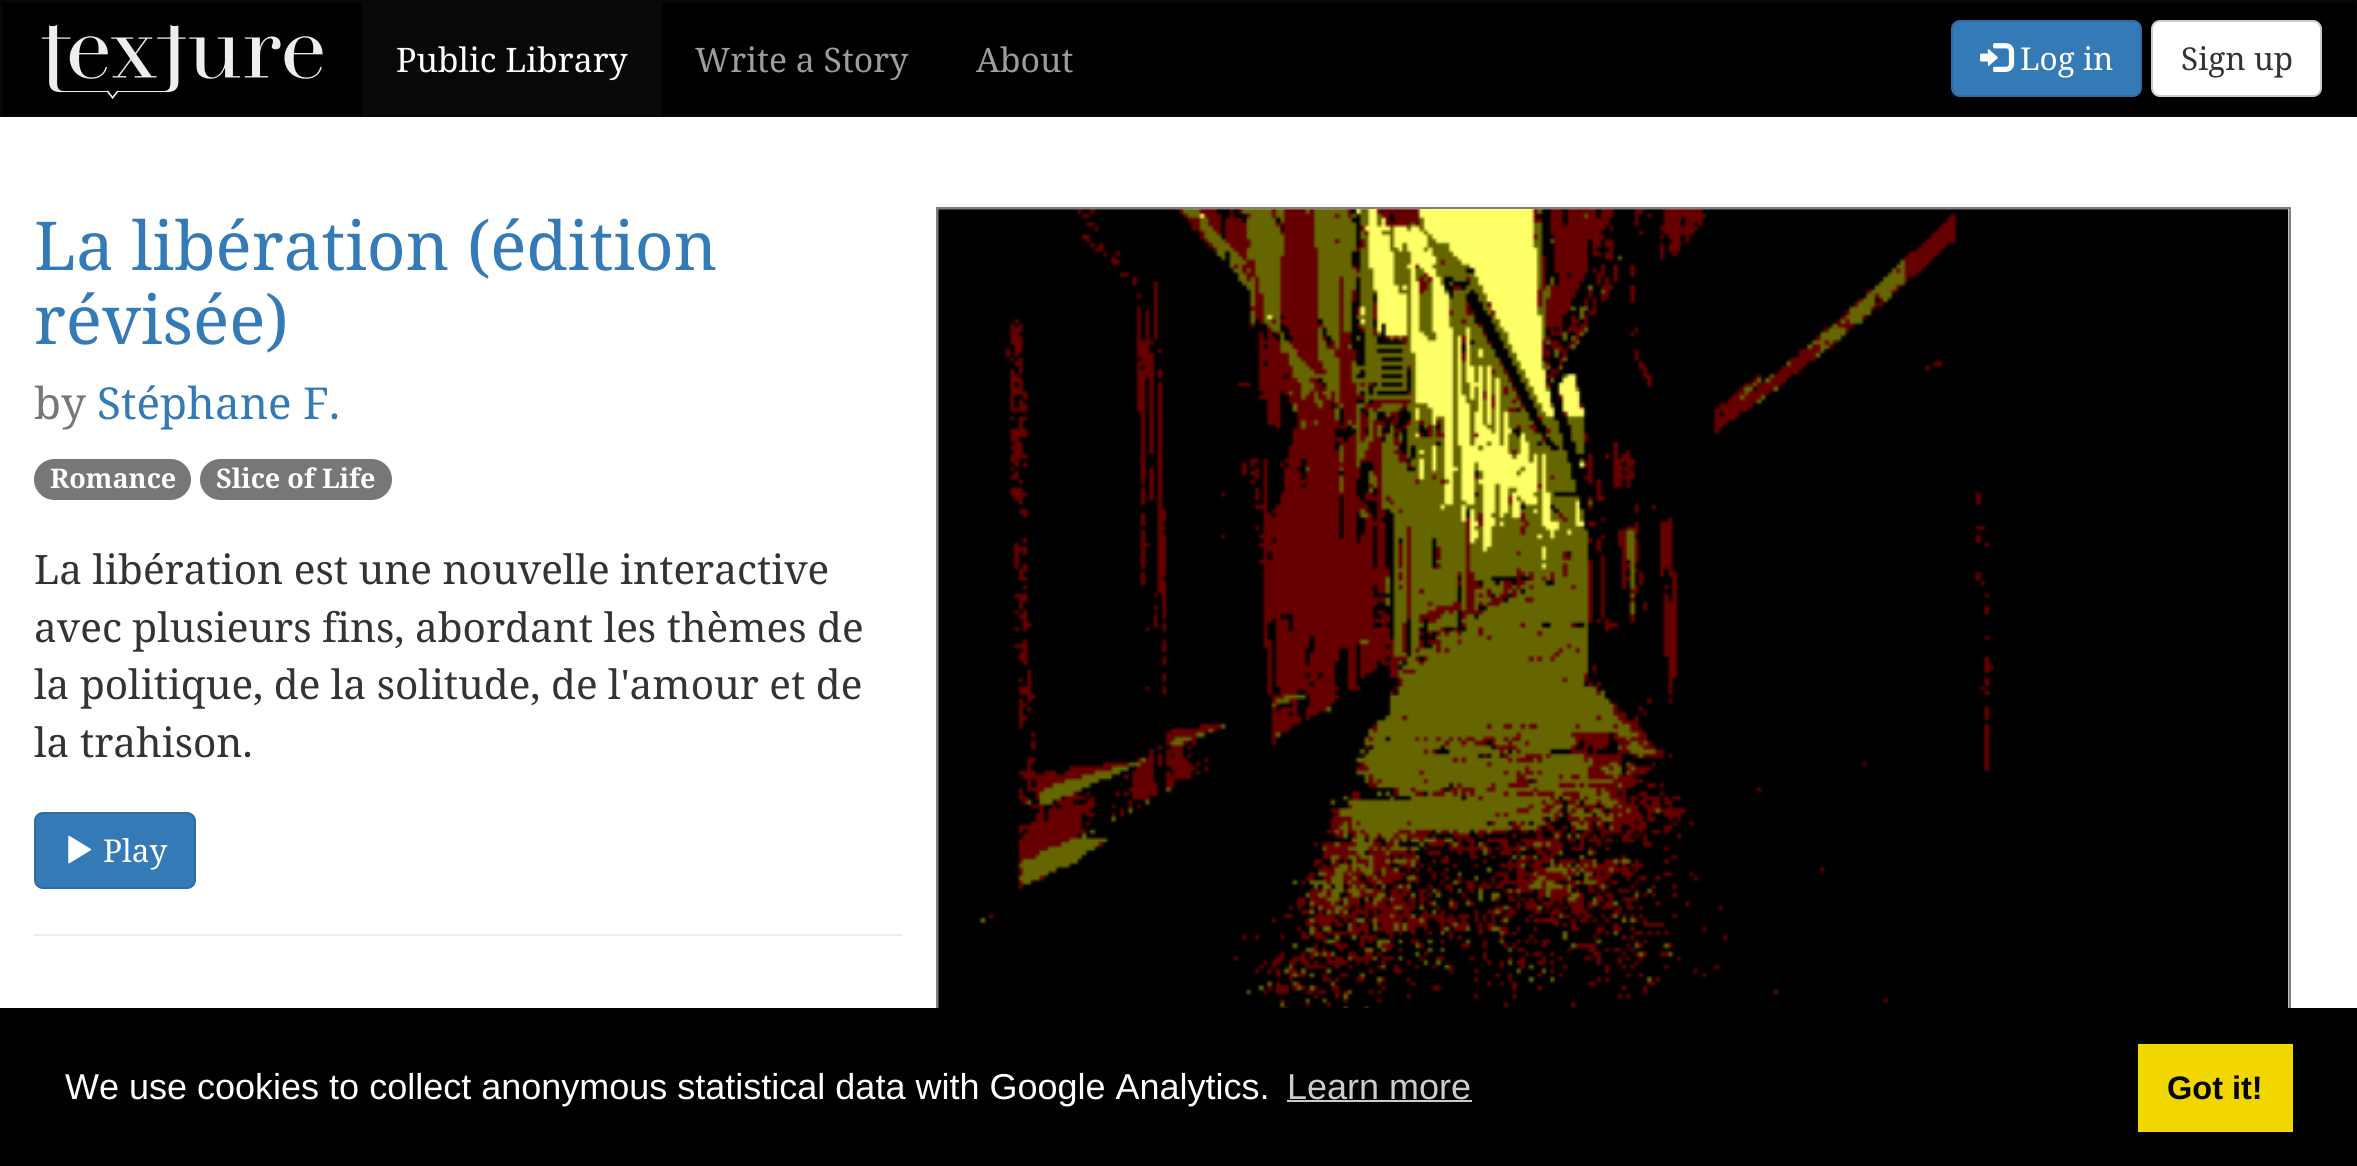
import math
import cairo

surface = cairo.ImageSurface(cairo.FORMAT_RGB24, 2357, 1166)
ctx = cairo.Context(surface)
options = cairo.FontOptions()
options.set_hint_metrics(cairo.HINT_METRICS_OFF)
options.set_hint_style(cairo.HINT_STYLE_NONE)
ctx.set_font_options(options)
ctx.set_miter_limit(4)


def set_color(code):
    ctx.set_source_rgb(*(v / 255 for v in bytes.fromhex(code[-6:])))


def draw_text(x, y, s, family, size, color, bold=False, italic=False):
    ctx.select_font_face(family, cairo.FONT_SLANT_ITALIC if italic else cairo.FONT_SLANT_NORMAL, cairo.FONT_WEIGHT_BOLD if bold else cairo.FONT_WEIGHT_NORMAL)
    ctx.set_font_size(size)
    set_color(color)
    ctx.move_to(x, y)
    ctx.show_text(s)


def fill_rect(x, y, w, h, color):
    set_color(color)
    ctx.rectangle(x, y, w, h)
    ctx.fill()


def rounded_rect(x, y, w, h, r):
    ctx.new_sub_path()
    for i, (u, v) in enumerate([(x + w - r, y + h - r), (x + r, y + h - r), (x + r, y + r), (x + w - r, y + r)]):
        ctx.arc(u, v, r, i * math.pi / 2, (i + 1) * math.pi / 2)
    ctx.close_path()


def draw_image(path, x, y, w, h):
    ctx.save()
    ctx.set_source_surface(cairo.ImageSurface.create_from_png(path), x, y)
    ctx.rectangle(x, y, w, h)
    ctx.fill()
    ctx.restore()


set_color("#ffffff")
ctx.paint()
set_color("#000000")
ctx.rectangle(1, 1, 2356, 115)
ctx.fill_preserve()
set_color("#080808")
ctx.stroke()
draw_image("assets/img1.png", 41, 24, 282, 75)
fill_rect(362, 2, 300, 113, "#080808")
draw_text(396, 72, "Public Library", "Noto Serif", 33.75, "#ffffff")
draw_text(695, 72, "Write a Story", "Noto Serif", 33.75, "#9d9d9d")
draw_text(976, 72, "About", "Noto Serif", 33.75, "#9d9d9d")
set_color("#337ab7")
rounded_rect(1952, 21, 189, 75, 8)
ctx.fill_preserve()
set_color("#2e6da4")
ctx.stroke()
draw_image("assets/img2.png", 1980, 43, 35, 29)
draw_text(2020, 70, "Log in", "Noto Serif", 31.5, "#ffffff")
rounded_rect(2152, 21, 169, 75, 8)
ctx.fill_preserve()
set_color("#cccccc")
ctx.stroke()
draw_text(2181, 70, "Sign up", "Noto Serif", 31.5, "#333333")
draw_text(34, 270, "La libération (édition", "Noto Serif", 67.5, "#337ab7")
draw_text(34, 344, "révisée)", "Noto Serif", 67.5, "#337ab7")
draw_text(34, 419, "by", "Noto Serif", 44, "#777777")
draw_text(97, 419, "Stéphane F.", "Noto Serif", 44, "#337ab7")
ctx.rectangle(937, 208, 1353, 846)
set_color("#808080")
ctx.stroke()
draw_image("assets/img3.png", 938, 209, 1351, 799)
set_color("#777777")
rounded_rect(34, 459, 157, 41, 20.5)
ctx.fill()
draw_text(50, 488, "Romance", "Noto Serif", 27, "#ffffff", bold=True)
set_color("#777777")
rounded_rect(200, 459, 192, 41, 20.5)
ctx.fill()
draw_text(216, 488, "Slice of Life", "Noto Serif", 27, "#ffffff", bold=True)
draw_text(34, 584, "La libération est une nouvelle interactive", "Noto Serif", 40.5, "#333333")
draw_text(34, 642, "avec plusieurs fins, abordant les thèmes de", "Noto Serif", 40.5, "#333333")
draw_text(34, 699, "la politique, de la solitude, de l'amour et de", "Noto Serif", 40.5, "#333333")
draw_text(34, 757, "la trahison.", "Noto Serif", 40.5, "#333333")
set_color("#337ab7")
rounded_rect(35, 813, 160, 75, 8)
ctx.fill_preserve()
set_color("#2e6da4")
ctx.stroke()
draw_image("assets/img4.png", 68, 835, 24, 29)
draw_text(103, 862, "Play", "Noto Serif", 31.5, "#ffffff")
fill_rect(34, 934, 868, 2, "#eeeeee")
fill_rect(0, 1008, 2357, 158, "#000000")
draw_text(65, 1099, "We use cookies to collect anonymous statistical data with Google Analytics.", "Liberation Sans", 36, "#ffffff")
draw_text(1287, 1099, "Learn more", "Liberation Sans", 36, "#cccccc")
fill_rect(1287, 1100, 185, 2, "#cccccc")
fill_rect(2138, 1044, 155, 88, "#f1d600")
draw_text(2167, 1099, "Got it!", "Liberation Sans", 32.5, "#000000", bold=True)
surface.write_to_png("output.png")
